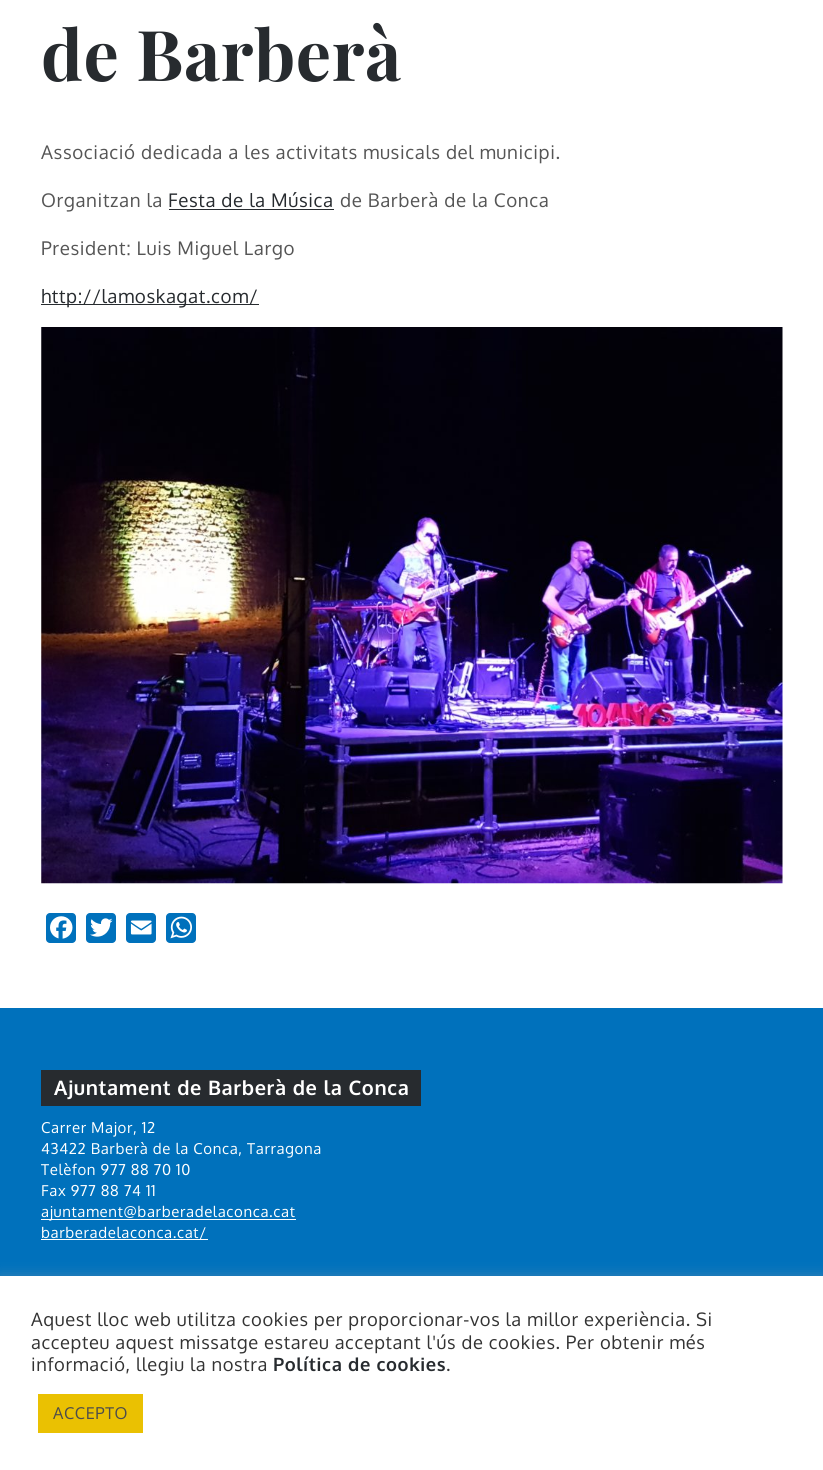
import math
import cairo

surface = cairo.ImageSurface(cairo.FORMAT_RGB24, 823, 1470)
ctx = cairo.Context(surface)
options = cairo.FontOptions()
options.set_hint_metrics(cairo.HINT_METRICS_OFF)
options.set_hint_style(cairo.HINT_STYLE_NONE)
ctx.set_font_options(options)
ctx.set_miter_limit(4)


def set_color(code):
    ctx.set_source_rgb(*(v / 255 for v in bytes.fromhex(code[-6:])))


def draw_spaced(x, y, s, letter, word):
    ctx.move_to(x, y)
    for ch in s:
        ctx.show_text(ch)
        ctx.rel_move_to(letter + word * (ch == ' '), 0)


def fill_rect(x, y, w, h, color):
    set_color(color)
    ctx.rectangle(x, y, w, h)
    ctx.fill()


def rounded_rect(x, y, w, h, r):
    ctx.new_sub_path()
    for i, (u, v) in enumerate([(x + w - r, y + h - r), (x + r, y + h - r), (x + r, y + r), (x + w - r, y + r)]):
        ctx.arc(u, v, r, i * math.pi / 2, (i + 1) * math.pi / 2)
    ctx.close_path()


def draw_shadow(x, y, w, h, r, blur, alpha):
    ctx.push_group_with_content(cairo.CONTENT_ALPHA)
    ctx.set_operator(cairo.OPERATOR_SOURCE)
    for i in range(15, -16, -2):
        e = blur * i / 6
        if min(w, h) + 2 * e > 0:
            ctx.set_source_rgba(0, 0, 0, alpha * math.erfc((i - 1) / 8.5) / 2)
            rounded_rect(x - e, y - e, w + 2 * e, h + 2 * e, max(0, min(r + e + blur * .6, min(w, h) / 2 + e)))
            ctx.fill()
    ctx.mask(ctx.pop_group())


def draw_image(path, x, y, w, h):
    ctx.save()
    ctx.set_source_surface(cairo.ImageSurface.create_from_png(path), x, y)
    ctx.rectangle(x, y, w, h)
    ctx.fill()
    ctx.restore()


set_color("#ffffff")
ctx.paint()
ctx.select_font_face("Playfair Display", cairo.FONT_SLANT_NORMAL, cairo.FONT_WEIGHT_BOLD)
ctx.set_font_size(70)
set_color("#272b2f")
draw_spaced(41, 81, "de Barberà", 0.62, 0)
ctx.select_font_face("Oxygen")
ctx.set_font_size(18.75)
set_color("#555555")
draw_spaced(41, 159, "Associació dedicada a les activitats musicals del municipi.", 0.62, 0)
draw_spaced(41, 207, "Organitzan la", 0.62, 0)
set_color("#272b2f")
draw_spaced(168, 207, "Festa de la Música", 0.62, 0)
fill_rect(169, 209, 165, 1, "#272b2f")
set_color("#555555")
draw_spaced(340, 207, "de Barberà de la Conca", 0.62, 0)
draw_spaced(41, 255, "President: Luis Miguel Largo", 0.62, 0)
fill_rect(41, 304, 218, 1, "#272b2f")
draw_spaced(41, 303, "http://lamoskagat.com/", 0.62, 0)
draw_image("assets/img1.png", 41, 327, 742, 557)
set_color("#0071bc")
rounded_rect(46, 913, 30, 30, 4)
ctx.fill()
draw_image("assets/img2.png", 50, 916, 23, 23)
rounded_rect(86, 913, 30, 30, 4)
ctx.fill()
draw_image("assets/img3.png", 90, 918, 23, 19)
rounded_rect(126, 913, 30, 30, 4)
ctx.fill()
draw_image("assets/img4.png", 130, 920, 22, 15)
rounded_rect(166, 913, 30, 30, 4)
ctx.fill()
draw_image("assets/img5.png", 170, 916, 22, 23)
fill_rect(0, 1008, 823, 268, "#0071bc")
fill_rect(41, 1070, 380, 36, "#272b2f")
ctx.select_font_face("Oxygen", cairo.FONT_SLANT_NORMAL, cairo.FONT_WEIGHT_BOLD)
ctx.set_font_size(20)
set_color("#ffffff")
draw_spaced(54, 1095, "Ajuntament de Barberà de la Conca", 0.62, 0)
ctx.select_font_face("Oxygen")
ctx.set_font_size(15)
draw_spaced(41, 1133, "Carrer Major, 12", 0.62, 0)
draw_spaced(41, 1154, "43422 Barberà de la Conca, Tarragona", 0.62, 0)
draw_spaced(41, 1175, "Telèfon 977 88 70 10", 0.62, 0)
draw_spaced(41, 1196, "Fax 977 88 74 11", 0.62, 0)
fill_rect(41, 1219, 255, 1, "#ffffff")
draw_spaced(41, 1217, "ajuntament@barberadelaconca.cat", 0.62, 0)
fill_rect(41, 1239, 167, 1, "#ffffff")
draw_spaced(41, 1238, "barberadelaconca.cat/", 0.62, 0)
set_color("#acabab")
draw_shadow(0, 1275, 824, 194, 0, 6, 0.3)
fill_rect(0, 1276, 823, 194, "#ffffff")
ctx.set_font_size(18.35)
set_color("#333333")
draw_spaced(31, 1326, "Aquest lloc web utilitza cookies per proporcionar-vos la millor experiència. Si", 0.62, 0)
draw_spaced(31, 1349, "accepteu aquest missatge estareu acceptant l'ús de cookies. Per obtenir més", 0.62, 0)
draw_spaced(31, 1371, "informació, llegiu la nostra", 0.62, 0)
ctx.select_font_face("Oxygen", cairo.FONT_SLANT_NORMAL, cairo.FONT_WEIGHT_BOLD)
set_color("#272b2f")
draw_spaced(273, 1371, "Política de cookies", 0.62, 0)
ctx.select_font_face("Oxygen")
set_color("#333333")
draw_spaced(446, 1371, ".", 0.62, 0)
fill_rect(38, 1394, 105, 39, "#eac102")
ctx.set_font_size(16.25)
set_color("#4c4c4c")
draw_spaced(53, 1419, "ACCEPTO", 0.62, 0)
surface.write_to_png("output.png")
